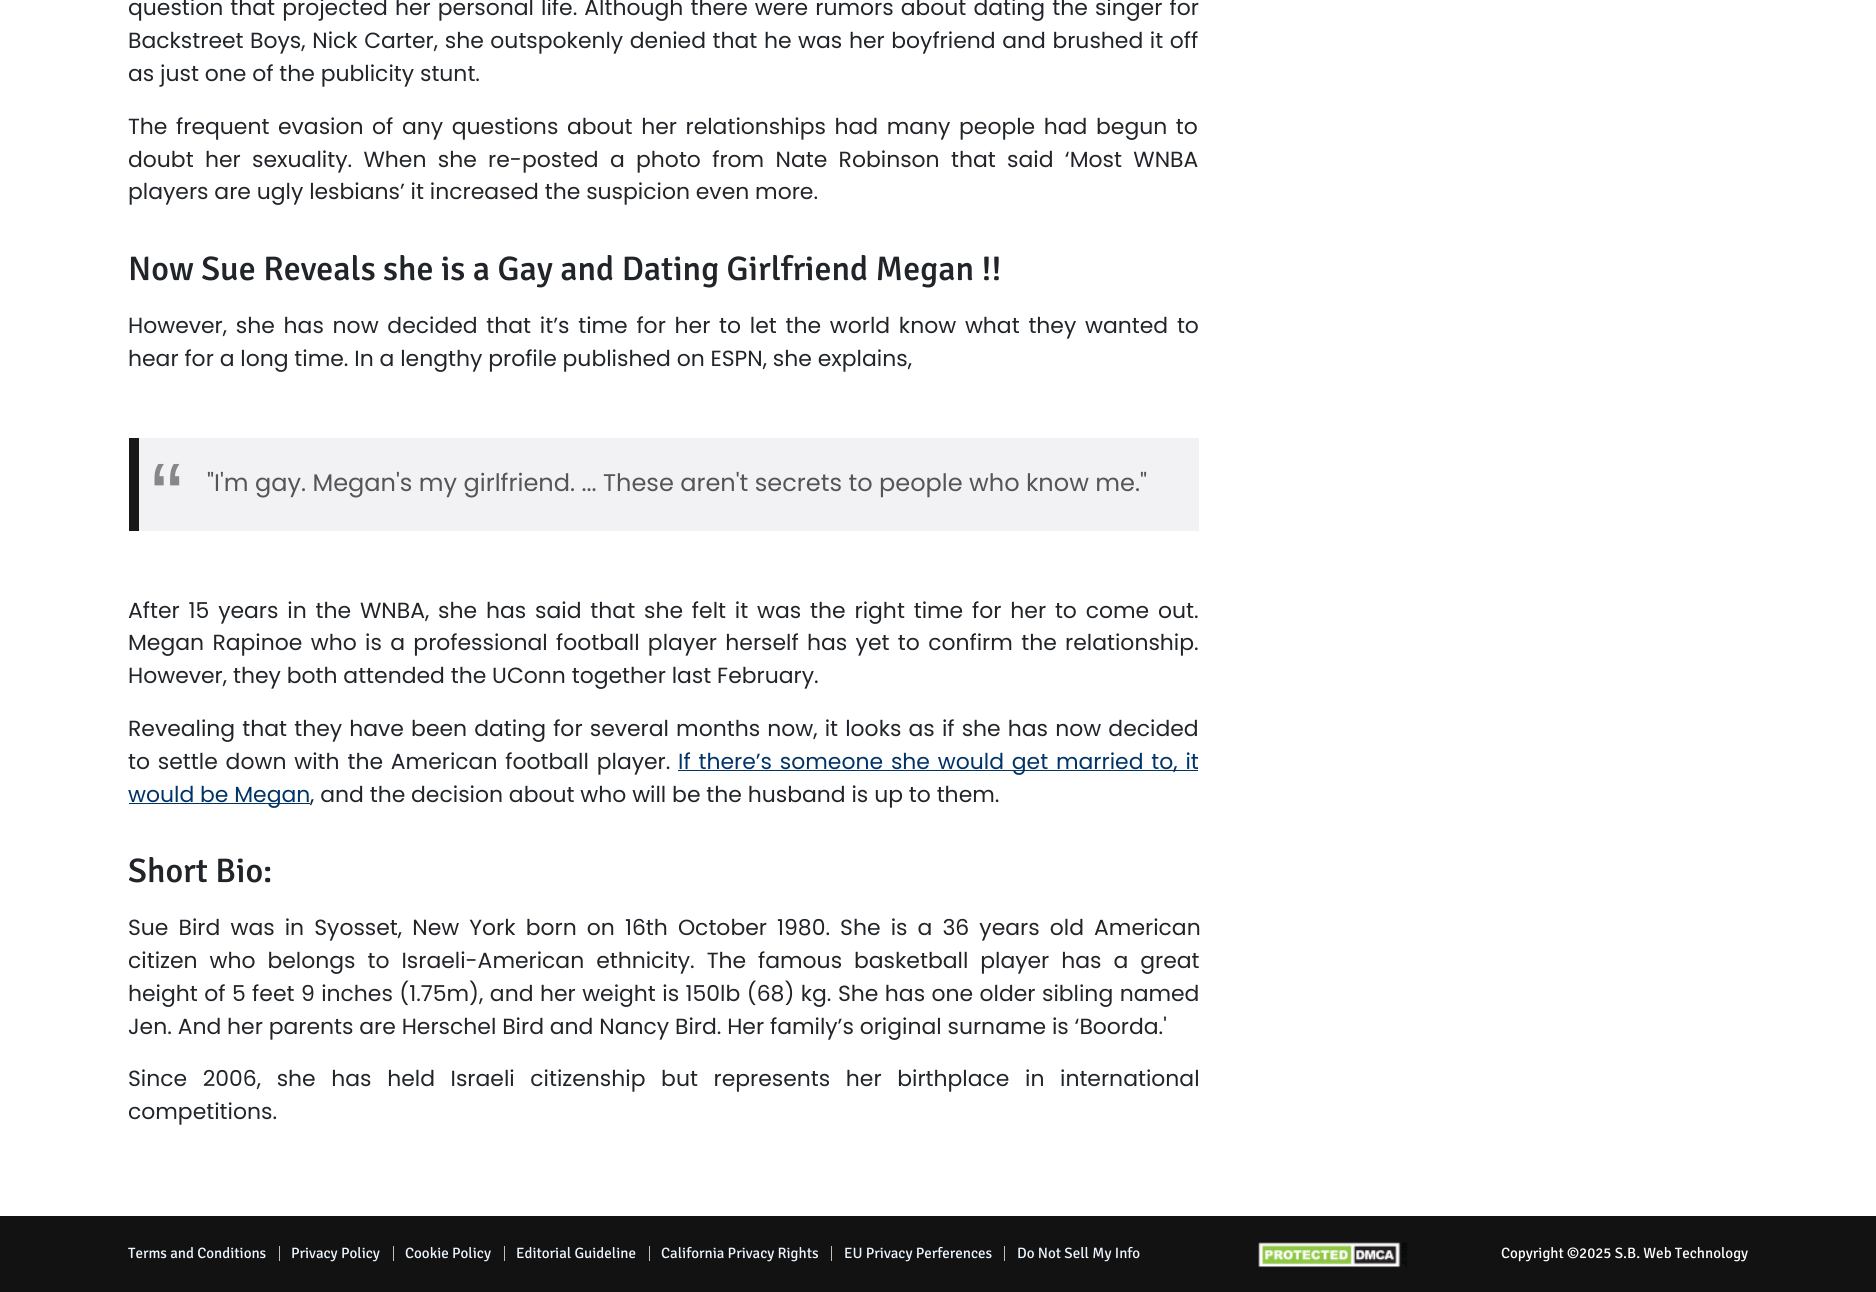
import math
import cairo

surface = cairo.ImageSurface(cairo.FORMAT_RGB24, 1876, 1292)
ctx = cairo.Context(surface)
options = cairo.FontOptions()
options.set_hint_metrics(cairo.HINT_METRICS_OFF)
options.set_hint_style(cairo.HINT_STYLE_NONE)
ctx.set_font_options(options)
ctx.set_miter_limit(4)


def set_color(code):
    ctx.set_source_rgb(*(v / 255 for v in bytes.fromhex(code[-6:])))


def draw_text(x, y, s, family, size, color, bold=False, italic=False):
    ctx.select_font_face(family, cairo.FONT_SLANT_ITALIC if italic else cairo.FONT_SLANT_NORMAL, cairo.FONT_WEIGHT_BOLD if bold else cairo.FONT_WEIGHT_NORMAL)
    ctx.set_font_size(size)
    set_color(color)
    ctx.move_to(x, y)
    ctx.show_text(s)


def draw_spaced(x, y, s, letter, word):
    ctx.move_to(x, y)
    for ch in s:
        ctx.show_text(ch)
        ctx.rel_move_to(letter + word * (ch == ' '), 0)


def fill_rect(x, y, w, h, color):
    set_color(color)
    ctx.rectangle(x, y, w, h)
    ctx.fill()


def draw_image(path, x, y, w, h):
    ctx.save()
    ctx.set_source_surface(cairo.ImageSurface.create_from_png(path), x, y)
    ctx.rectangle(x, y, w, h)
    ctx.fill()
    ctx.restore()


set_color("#ffffff")
ctx.paint()
ctx.select_font_face("Poppins")
ctx.set_font_size(21.9)
set_color("#212529")
draw_spaced(128, 15, "question that projected her personal life. Although there were rumors about dating the singer for", 0, 1.25)
draw_spaced(128, 48, "Backstreet Boys, Nick Carter, she outspokenly denied that he was her boyfriend and brushed it off", 0, 0.75)
draw_text(128, 81, "as just one of the publicity stunt.", "Poppins", 21.9, "#212529")
draw_spaced(128, 134, "The frequent evasion of any questions about her relationships had many people had begun to", 0, 2.75)
draw_spaced(128, 167, "doubt her sexuality. When she re-posted a photo from Nate Robinson that said ‘Most WNBA", 0, 5.5)
draw_text(128, 199, "players are ugly lesbians’ it increased the suspicion even more.", "Poppins", 21.9, "#212529")
draw_text(128, 280, "Now Sue Reveals she is a Gay and Dating Girlfriend Megan !!", "Signika Medium", 34, "#212529")
ctx.select_font_face("Poppins")
ctx.set_font_size(21.9)
draw_spaced(128, 333, "However, she has now decided that it’s time for her to let the world know what they wanted to", 0, 2.9)
draw_text(128, 366, "hear for a long time. In a lengthy profile published on ESPN, she explains,", "Poppins", 21.9, "#212529")
fill_rect(139, 438, 1060, 93, "#f2f2f5")
fill_rect(129, 438, 10, 93, "#181818")
draw_text(151, 530, "“", "Liberation Sans", 96, "#888686")
draw_text(207, 491, "\"I'm gay. Megan's my girlfriend. ... These aren't secrets to people who know me.\"", "Poppins", 24.05, "#555555")
ctx.set_font_size(21.9)
set_color("#212529")
draw_spaced(128, 618, "After 15 years in the WNBA, she has said that she felt it was the right time for her to come out.", 0, 3)
draw_spaced(128, 650, "Megan Rapinoe who is a professional football player herself has yet to confirm the relationship.", 0, 2.5)
draw_text(128, 683, "However, they both attended the UConn together last February.", "Poppins", 21.9, "#212529")
draw_spaced(128, 736, "Revealing that they have been dating for several months now, it looks as if she has now decided", 0, 1.3)
draw_spaced(128, 769, "to settle down with the American football player.", 0, 2)
fill_rect(678, 770, 520, 1, "#003366")
draw_spaced(678, 769, "If there’s someone she would get married to, it", 0, 2)
fill_rect(129, 803, 181, 1, "#003366")
draw_text(128, 802, "would be Megan", "Poppins", 21.9, "#003366")
draw_text(310, 802, ", and the decision about who will be the husband is up to them.", "Poppins", 21.9, "#212529")
draw_text(128, 882, "Short Bio:", "Signika Medium", 34, "#212529")
ctx.select_font_face("Poppins")
ctx.set_font_size(21.9)
draw_spaced(128, 935, "Sue Bird was in Syosset, New York born on 16th October 1980. She is a 36 years old American", 0, 4.25)
draw_spaced(128, 968, "citizen who belongs to Israeli-American ethnicity. The famous basketball player has a great", 0, 6.1)
draw_spaced(128, 1001, "height of 5 feet 9 inches (1.75m), and her weight is 150lb (68) kg. She has one older sibling named", 0, 0.6)
draw_text(128, 1034, "Jen. And her parents are Herschel Bird and Nancy Bird. Her family’s original surname is ‘Boorda.'", "Poppins", 21.9, "#212529")
draw_spaced(128, 1086, "Since 2006, she has held Israeli citizenship but represents her birthplace in international", 0, 9.75)
draw_text(128, 1119, "competitions.", "Poppins", 21.9, "#212529")
fill_rect(0, 1216, 1876, 76, "#121212")
draw_text(128, 1258, "Terms and Conditions", "Signika", 15, "#edf6ff")
fill_rect(279, 1246, 1, 15, "#bfbfbf")
draw_text(291, 1258, "Privacy Policy", "Signika", 15, "#edf6ff")
fill_rect(393, 1246, 1, 15, "#bfbfbf")
draw_text(405, 1258, "Cookie Policy", "Signika", 15, "#edf6ff")
fill_rect(504, 1246, 1, 15, "#bfbfbf")
draw_text(516, 1258, "Editorial Guideline", "Signika", 15, "#edf6ff")
fill_rect(649, 1246, 1, 15, "#bfbfbf")
draw_text(661, 1258, "California Privacy Rights", "Signika", 15, "#edf6ff")
fill_rect(831, 1246, 1, 15, "#bfbfbf")
draw_text(844, 1258, "EU Privacy Perferences", "Signika", 15, "#edf6ff")
fill_rect(1004, 1246, 1, 15, "#bfbfbf")
draw_text(1017, 1258, "Do Not Sell My Info", "Signika", 15, "#edf6ff")
draw_image("assets/img1.png", 1258, 1242, 150, 26)
draw_text(1501, 1258, "Copyright ©2025 S.B. Web Technology", "Signika", 15, "#ffffff")
surface.write_to_png("output.png")
